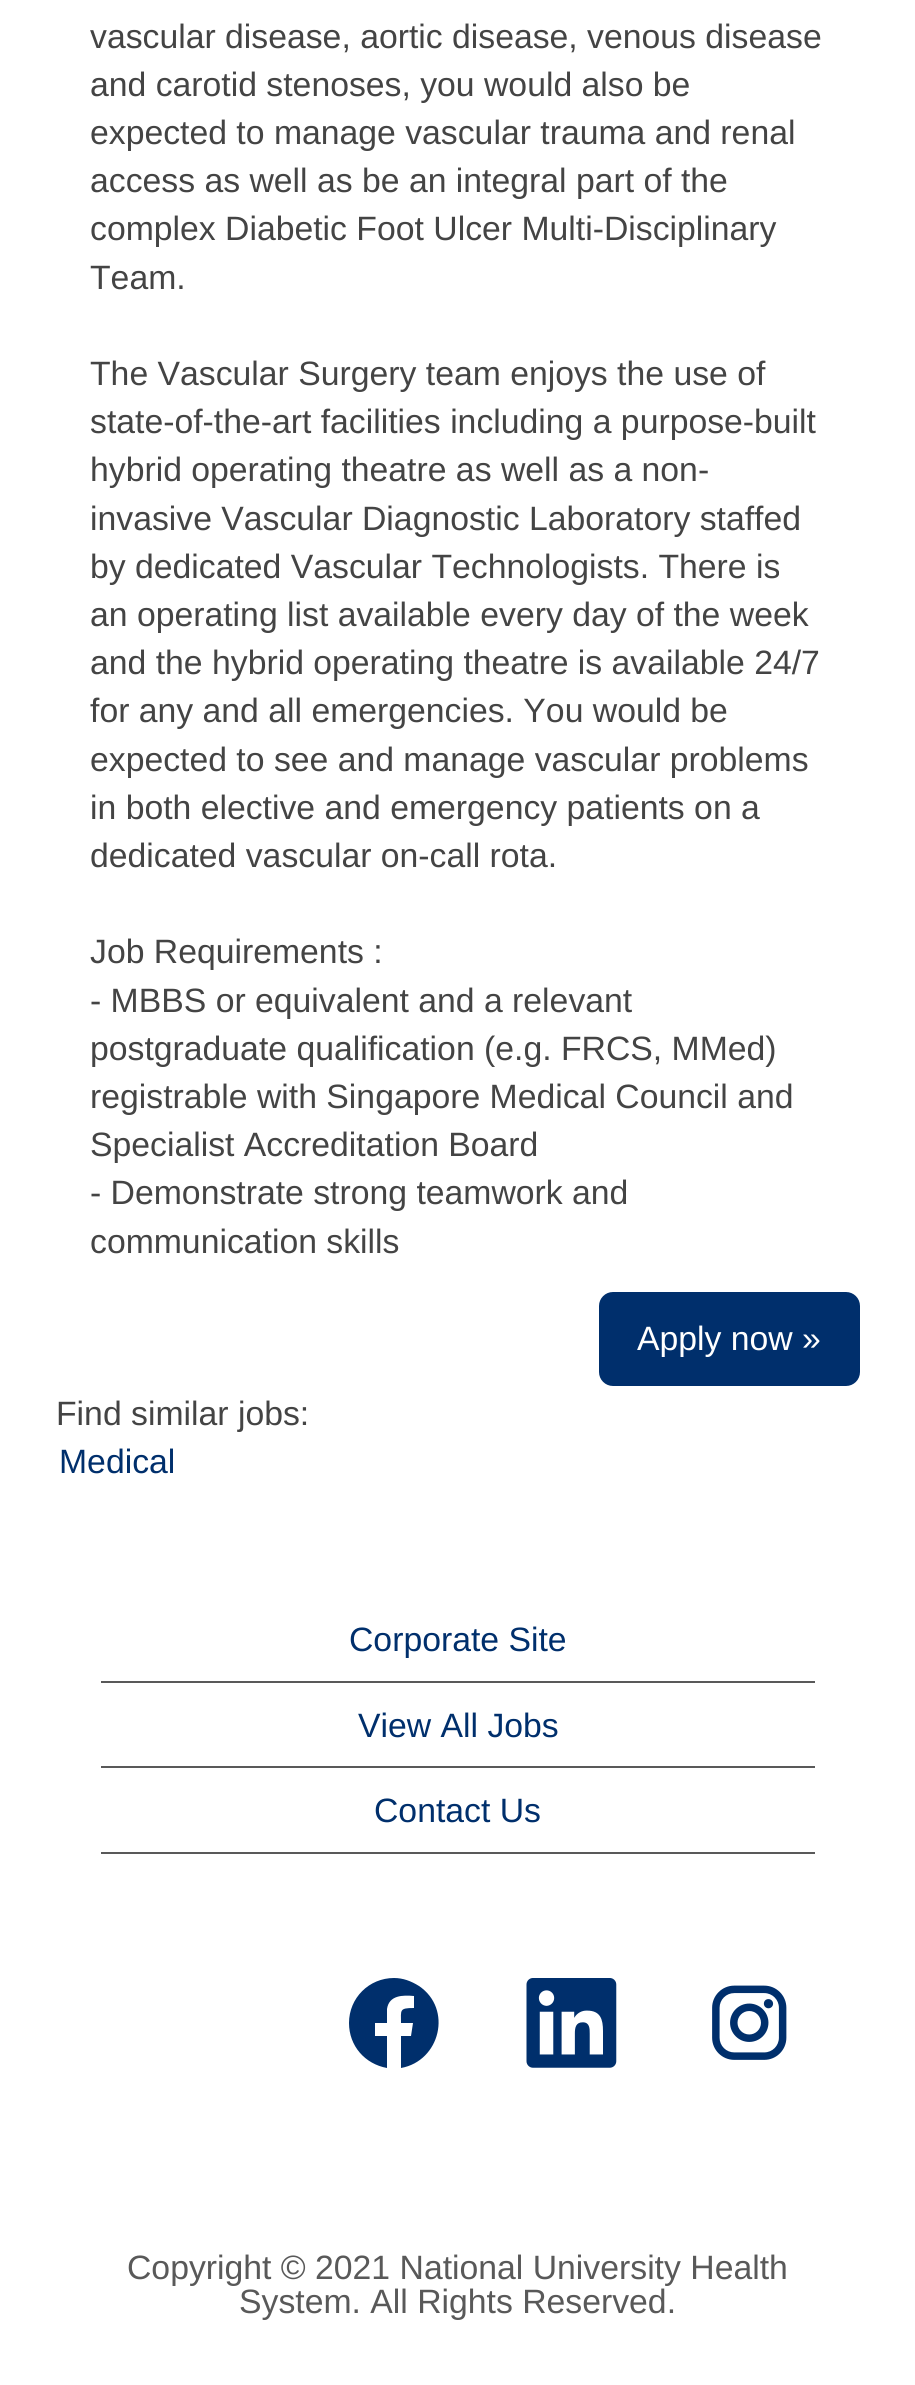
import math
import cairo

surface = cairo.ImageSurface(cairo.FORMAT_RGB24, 915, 2385)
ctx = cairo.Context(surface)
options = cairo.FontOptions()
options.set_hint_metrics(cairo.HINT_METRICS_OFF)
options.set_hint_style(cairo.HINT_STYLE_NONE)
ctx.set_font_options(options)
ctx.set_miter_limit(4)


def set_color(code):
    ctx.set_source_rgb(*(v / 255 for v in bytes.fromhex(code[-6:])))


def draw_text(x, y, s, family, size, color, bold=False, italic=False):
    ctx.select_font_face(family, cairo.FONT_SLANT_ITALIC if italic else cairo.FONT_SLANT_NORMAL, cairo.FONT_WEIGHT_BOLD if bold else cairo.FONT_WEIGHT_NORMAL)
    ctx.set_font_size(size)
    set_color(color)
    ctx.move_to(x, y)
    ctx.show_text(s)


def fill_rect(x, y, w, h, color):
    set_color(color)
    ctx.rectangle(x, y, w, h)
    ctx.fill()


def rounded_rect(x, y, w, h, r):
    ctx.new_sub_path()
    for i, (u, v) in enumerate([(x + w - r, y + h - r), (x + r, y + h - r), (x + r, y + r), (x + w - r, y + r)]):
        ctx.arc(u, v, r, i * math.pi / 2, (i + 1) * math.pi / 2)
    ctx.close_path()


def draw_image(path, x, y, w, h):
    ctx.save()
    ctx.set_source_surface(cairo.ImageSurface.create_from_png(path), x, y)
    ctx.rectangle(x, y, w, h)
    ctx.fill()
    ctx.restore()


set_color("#ffffff")
ctx.paint()
draw_text(90, 48, "vascular disease, aortic disease, venous disease", "Liberation Sans", 33.75, "#444444")
draw_text(90, 96, "and carotid stenoses, you would also be", "Liberation Sans", 33.75, "#444444")
draw_text(90, 144, "expected to manage vascular trauma and renal", "Liberation Sans", 33.75, "#444444")
draw_text(90, 192, "access as well as be an integral part of the", "Liberation Sans", 33.75, "#444444")
draw_text(90, 240, "complex Diabetic Foot Ulcer Multi-Disciplinary", "Liberation Sans", 33.75, "#444444")
draw_text(90, 289, "Team.", "Liberation Sans", 33.75, "#444444")
draw_text(90, 385, "The Vascular Surgery team enjoys the use of", "Liberation Sans", 33.75, "#444444")
draw_text(90, 433, "state-of-the-art facilities including a purpose-built", "Liberation Sans", 33.75, "#444444")
draw_text(90, 481, "hybrid operating theatre as well as a non-", "Liberation Sans", 33.75, "#444444")
draw_text(90, 530, "invasive Vascular Diagnostic Laboratory staffed", "Liberation Sans", 33.75, "#444444")
draw_text(90, 578, "by dedicated Vascular Technologists. There is", "Liberation Sans", 33.75, "#444444")
draw_text(90, 626, "an operating list available every day of the week", "Liberation Sans", 33.75, "#444444")
draw_text(90, 674, "and the hybrid operating theatre is available 24/7", "Liberation Sans", 33.75, "#444444")
draw_text(90, 722, "for any and all emergencies. You would be", "Liberation Sans", 33.75, "#444444")
draw_text(90, 771, "expected to see and manage vascular problems", "Liberation Sans", 33.75, "#444444")
draw_text(90, 819, "in both elective and emergency patients on a", "Liberation Sans", 33.75, "#444444")
draw_text(90, 867, "dedicated vascular on-call rota.", "Liberation Sans", 33.75, "#444444")
draw_text(90, 963, "Job Requirements :", "Liberation Sans", 33.75, "#444444")
draw_text(90, 1012, "- MBBS or equivalent and a relevant", "Liberation Sans", 33.75, "#444444")
draw_text(90, 1060, "postgraduate qualification (e.g. FRCS, MMed)", "Liberation Sans", 33.75, "#444444")
draw_text(90, 1108, "registrable with Singapore Medical Council and", "Liberation Sans", 33.75, "#444444")
draw_text(90, 1156, "Specialist Accreditation Board", "Liberation Sans", 33.75, "#444444")
draw_text(90, 1204, "- Demonstrate strong teamwork and", "Liberation Sans", 33.75, "#444444")
draw_text(90, 1253, "communication skills", "Liberation Sans", 33.75, "#444444")
set_color("#002f6c")
rounded_rect(599, 1292, 261, 94, 14)
ctx.fill()
draw_text(637, 1350, "Apply now »", "Liberation Sans", 33.75, "#ffffff")
draw_text(56, 1425, "Find similar jobs:", "Liberation Sans", 33.75, "#444444")
draw_text(59, 1473, "Medical", "Liberation Sans", 33.75, "#002f6c")
fill_rect(101, 1681, 714, 2, "#595959")
draw_text(349, 1651, "Corporate Site", "Liberation Sans", 33.75, "#002f6c")
fill_rect(101, 1766, 714, 2, "#595959")
draw_text(358, 1737, "View All Jobs", "Liberation Sans", 33.75, "#002f6c")
fill_rect(101, 1852, 714, 2, "#595959")
draw_text(374, 1822, "Contact Us", "Liberation Sans", 33.75, "#002f6c")
ctx.new_path()
ctx.move_to(394, 1978)
ctx.curve_to(369, 1978, 349, 1998, 349, 2023)
ctx.curve_to(349, 2046, 365, 2064, 387, 2068)
ctx.line_to(387, 2036)
ctx.line_to(375, 2036)
ctx.line_to(375, 2023)
ctx.line_to(387, 2023)
ctx.line_to(387, 2009)
ctx.curve_to(389, 1995, 403, 1995, 414, 1996)
ctx.line_to(414, 2008)
ctx.curve_to(399, 2008, 401, 2010, 401, 2023)
ctx.line_to(413, 2023)
ctx.line_to(411, 2036)
ctx.line_to(401, 2036)
ctx.line_to(401, 2068)
ctx.curve_to(440, 2061, 453, 2009, 419, 1986)
ctx.curve_to(411, 1981, 403, 1978, 394, 1978)
ctx.close_path()
ctx.fill()
draw_image("assets/img1.png", 526, 1978, 91, 90)
draw_image("assets/img2.png", 712, 1985, 75, 75)
draw_text(127, 2279, "Copyright © 2021 National University Health", "Liberation Sans", 33.75, "#595959")
draw_text(239, 2313, "System. All Rights Reserved.", "Liberation Sans", 33.75, "#595959")
surface.write_to_png("output.png")
